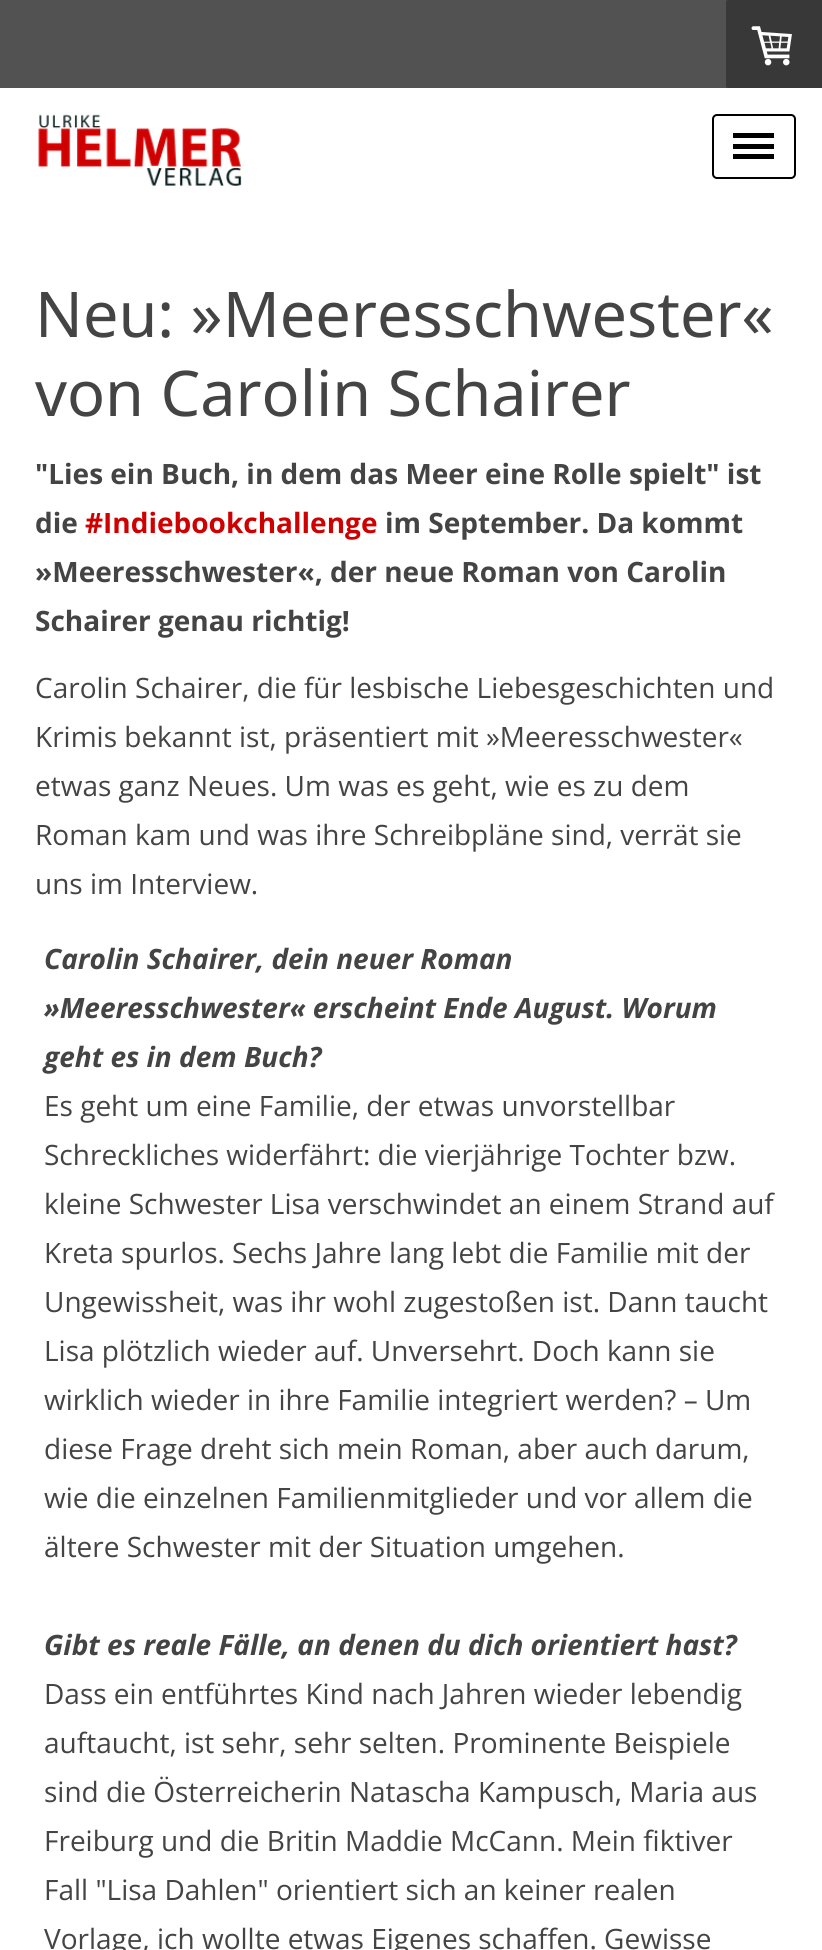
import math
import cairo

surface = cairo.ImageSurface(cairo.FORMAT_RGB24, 822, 1950)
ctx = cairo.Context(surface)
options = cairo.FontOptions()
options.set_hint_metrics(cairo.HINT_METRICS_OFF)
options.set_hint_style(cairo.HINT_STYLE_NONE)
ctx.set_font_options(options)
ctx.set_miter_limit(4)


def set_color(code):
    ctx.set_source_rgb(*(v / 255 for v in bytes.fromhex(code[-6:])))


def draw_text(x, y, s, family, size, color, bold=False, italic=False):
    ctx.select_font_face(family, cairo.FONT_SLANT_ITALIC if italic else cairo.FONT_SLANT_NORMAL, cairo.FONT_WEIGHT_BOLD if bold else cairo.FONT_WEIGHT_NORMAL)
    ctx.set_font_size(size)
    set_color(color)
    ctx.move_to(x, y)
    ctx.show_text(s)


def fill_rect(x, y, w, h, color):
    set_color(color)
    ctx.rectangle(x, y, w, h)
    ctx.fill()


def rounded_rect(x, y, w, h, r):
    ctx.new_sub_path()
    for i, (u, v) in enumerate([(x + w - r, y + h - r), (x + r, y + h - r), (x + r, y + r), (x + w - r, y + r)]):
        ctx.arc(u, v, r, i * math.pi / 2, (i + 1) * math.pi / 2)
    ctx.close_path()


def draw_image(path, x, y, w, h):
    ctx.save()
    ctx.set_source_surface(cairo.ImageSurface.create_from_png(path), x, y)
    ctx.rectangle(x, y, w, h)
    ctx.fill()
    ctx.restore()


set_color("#ffffff")
ctx.paint()
fill_rect(0, 0, 822, 88, "#525252")
set_color("#383838")
rounded_rect(726, 0, 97, 88, 2)
ctx.fill()
draw_image("assets/img1.png", 751, 26, 41, 40)
draw_image("assets/img2.png", 38, 114, 204, 72)
rounded_rect(713, 115, 82, 63, 4)
set_color("#000000")
ctx.stroke()
fill_rect(733, 144, 41, 5, "#000000")
fill_rect(733, 133, 41, 5, "#000000")
fill_rect(733, 154, 41, 5, "#000000")
draw_text(35, 337, "Neu: »Meeresschwester«", "Noto Sans", 63, "#444444")
draw_text(35, 416, "von Carolin Schairer", "Noto Sans", 63, "#444444")
draw_text(35, 484, "\"Lies ein Buch, in dem das Meer eine Rolle spielt\" ist", "Open Sans", 28, "#444444", bold=True)
draw_text(35, 533, "die", "Open Sans", 28, "#444444", bold=True)
draw_text(85, 533, "#Indiebookchallenge", "Open Sans", 28, "#ce0000", bold=True)
draw_text(385, 533, "im September. Da kommt", "Open Sans", 28, "#444444", bold=True)
draw_text(35, 582, "»Meeresschwester«, der neue Roman von Carolin", "Open Sans", 28, "#444444", bold=True)
draw_text(35, 631, "Schairer genau richtig!", "Open Sans", 28, "#444444", bold=True)
draw_text(35, 698, "Carolin Schairer, die für lesbische Liebesgeschichten und", "Open Sans", 28, "#444444")
draw_text(35, 747, "Krimis bekannt ist, präsentiert mit »Meeresschwester«", "Open Sans", 28, "#444444")
draw_text(35, 796, "etwas ganz Neues. Um was es geht, wie es zu dem", "Open Sans", 28, "#444444")
draw_text(35, 845, "Roman kam und was ihre Schreibpläne sind, verrät sie", "Open Sans", 28, "#444444")
draw_text(35, 894, "uns im Interview.", "Open Sans", 28, "#444444")
draw_text(44, 969, "Carolin Schairer, dein neuer Roman", "Open Sans", 28, "#444444", bold=True, italic=True)
draw_text(44, 1018, "»Meeresschwester« erscheint Ende August. Worum", "Open Sans", 28, "#444444", bold=True, italic=True)
draw_text(44, 1067, "geht es in dem Buch?", "Open Sans", 28, "#444444", bold=True, italic=True)
draw_text(44, 1116, "Es geht um eine Familie, der etwas unvorstellbar", "Open Sans", 28, "#444444")
draw_text(44, 1165, "Schreckliches widerfährt: die vierjährige Tochter bzw.", "Open Sans", 28, "#444444")
draw_text(44, 1214, "kleine Schwester Lisa verschwindet an einem Strand auf", "Open Sans", 28, "#444444")
draw_text(44, 1263, "Kreta spurlos. Sechs Jahre lang lebt die Familie mit der", "Open Sans", 28, "#444444")
draw_text(44, 1312, "Ungewissheit, was ihr wohl zugestoßen ist. Dann taucht", "Open Sans", 28, "#444444")
draw_text(44, 1361, "Lisa plötzlich wieder auf. Unversehrt. Doch kann sie", "Open Sans", 28, "#444444")
draw_text(44, 1410, "wirklich wieder in ihre Familie integriert werden? – Um", "Open Sans", 28, "#444444")
draw_text(44, 1459, "diese Frage dreht sich mein Roman, aber auch darum,", "Open Sans", 28, "#444444")
draw_text(44, 1508, "wie die einzelnen Familienmitglieder und vor allem die", "Open Sans", 28, "#444444")
draw_text(44, 1557, "ältere Schwester mit der Situation umgehen.", "Open Sans", 28, "#444444")
draw_text(44, 1655, "Gibt es reale Fälle, an denen du dich orientiert hast?", "Open Sans", 28, "#444444", bold=True, italic=True)
draw_text(44, 1704, "Dass ein entführtes Kind nach Jahren wieder lebendig", "Open Sans", 28, "#444444")
draw_text(44, 1753, "auftaucht, ist sehr, sehr selten. Prominente Beispiele", "Open Sans", 28, "#444444")
draw_text(44, 1802, "sind die Österreicherin Natascha Kampusch, Maria aus", "Open Sans", 28, "#444444")
draw_text(44, 1851, "Freiburg und die Britin Maddie McCann. Mein fiktiver", "Open Sans", 28, "#444444")
draw_text(44, 1900, "Fall \"Lisa Dahlen\" orientiert sich an keiner realen", "Open Sans", 28, "#444444")
draw_text(44, 1949, "Vorlage, ich wollte etwas Eigenes schaffen. Gewisse", "Open Sans", 28, "#444444")
surface.write_to_png("output.png")
